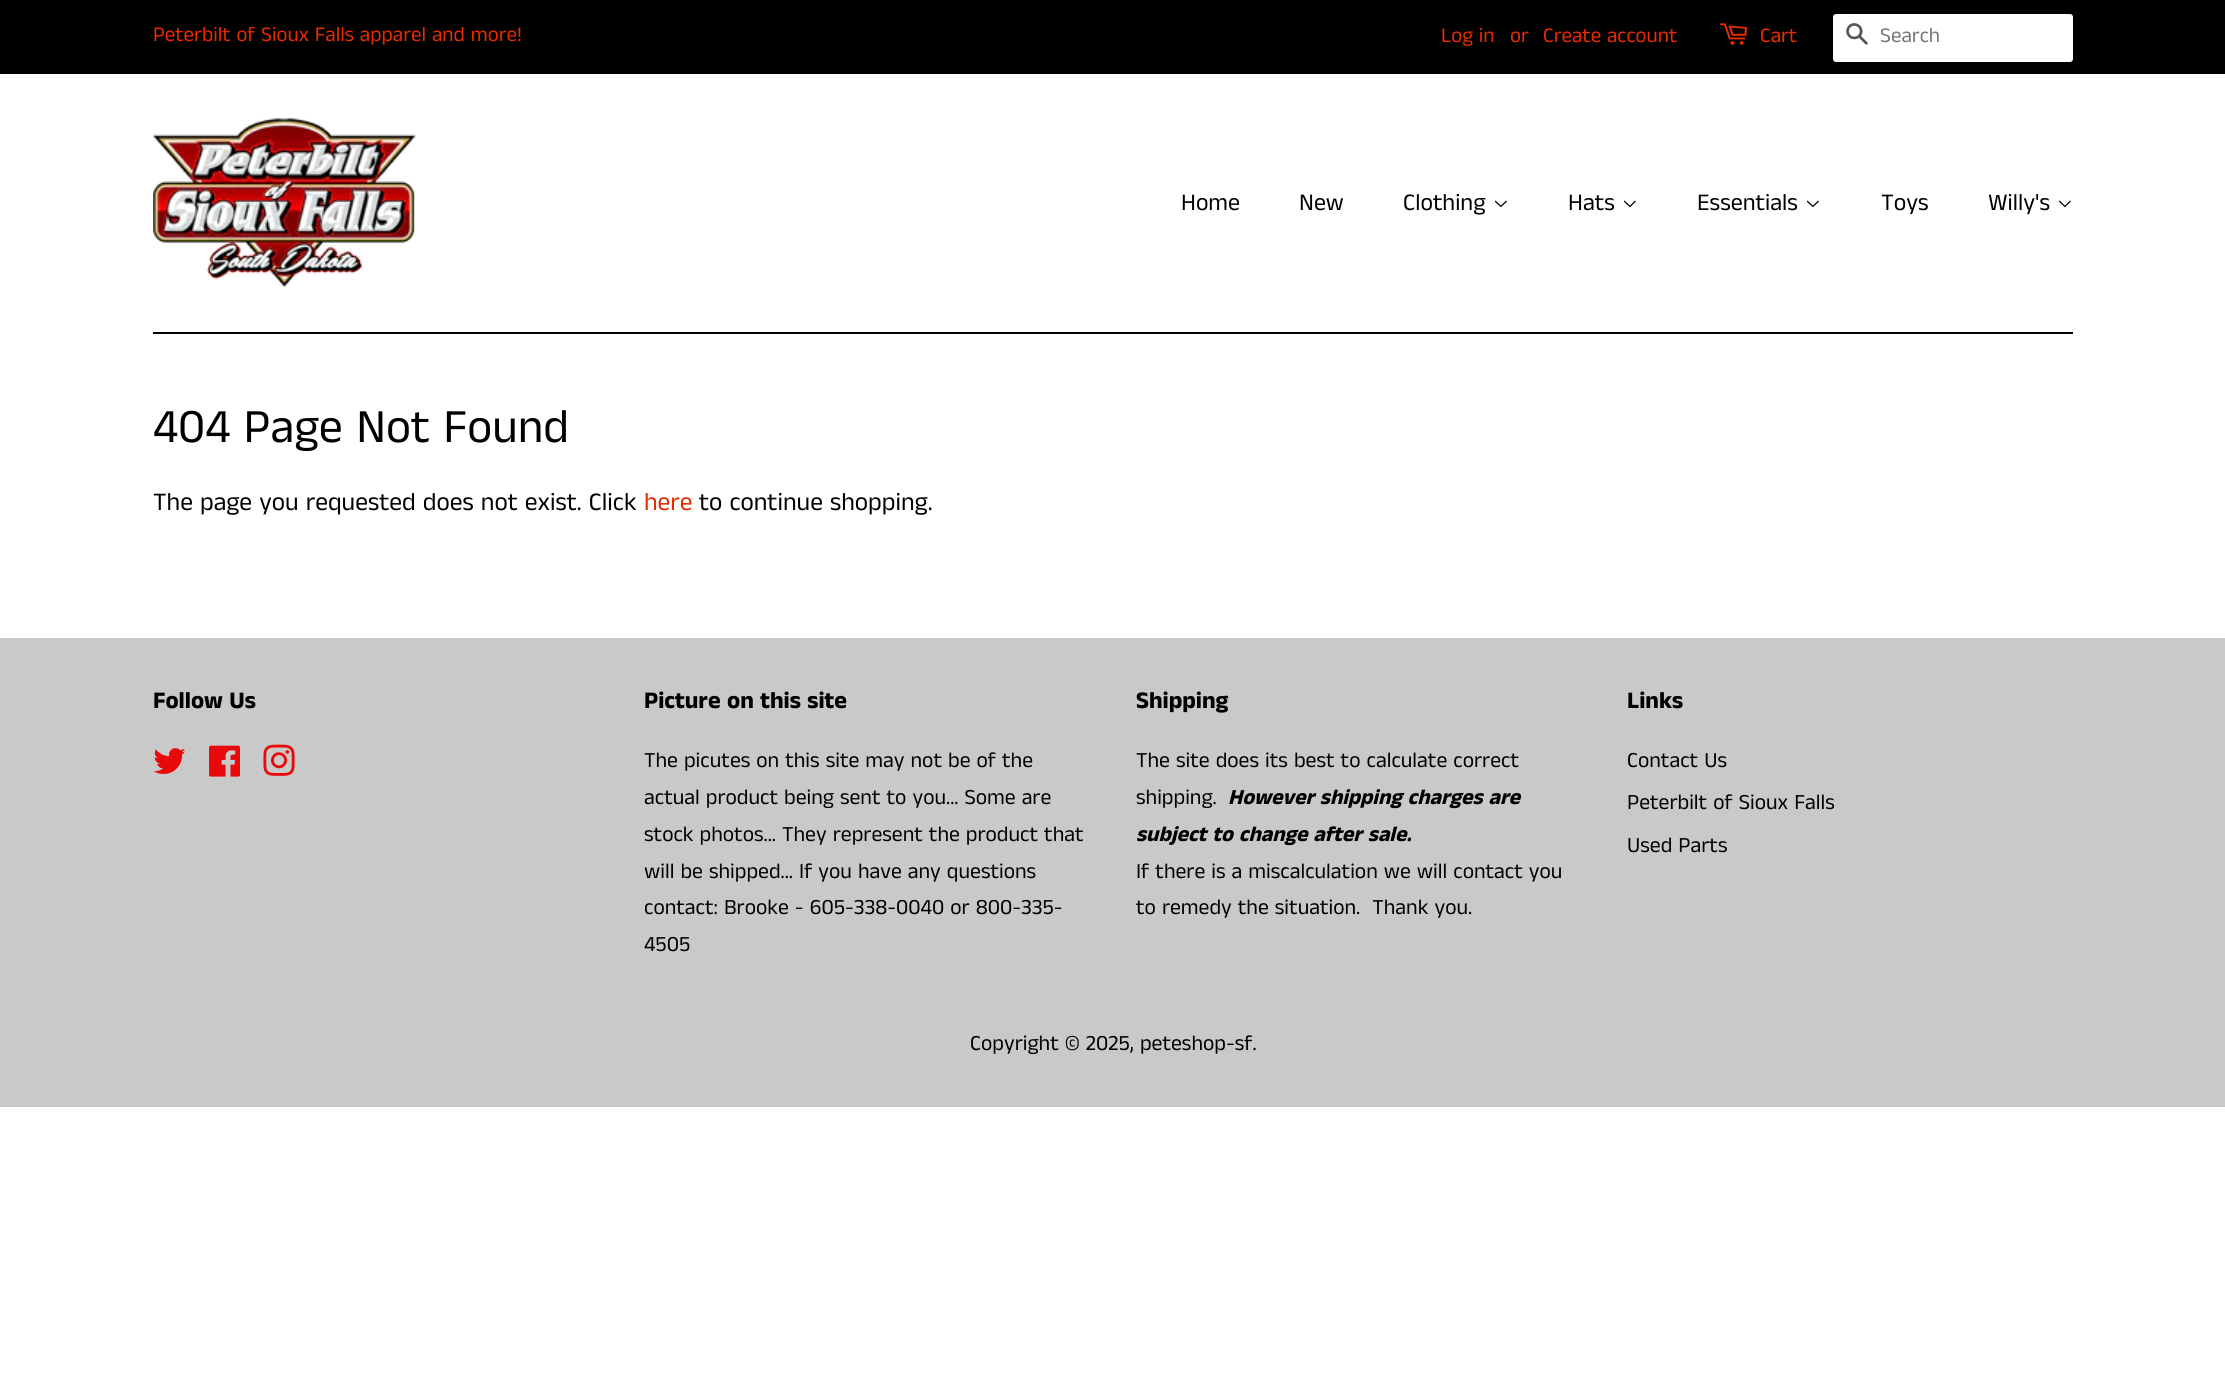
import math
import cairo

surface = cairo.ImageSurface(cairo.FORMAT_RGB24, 2225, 1395)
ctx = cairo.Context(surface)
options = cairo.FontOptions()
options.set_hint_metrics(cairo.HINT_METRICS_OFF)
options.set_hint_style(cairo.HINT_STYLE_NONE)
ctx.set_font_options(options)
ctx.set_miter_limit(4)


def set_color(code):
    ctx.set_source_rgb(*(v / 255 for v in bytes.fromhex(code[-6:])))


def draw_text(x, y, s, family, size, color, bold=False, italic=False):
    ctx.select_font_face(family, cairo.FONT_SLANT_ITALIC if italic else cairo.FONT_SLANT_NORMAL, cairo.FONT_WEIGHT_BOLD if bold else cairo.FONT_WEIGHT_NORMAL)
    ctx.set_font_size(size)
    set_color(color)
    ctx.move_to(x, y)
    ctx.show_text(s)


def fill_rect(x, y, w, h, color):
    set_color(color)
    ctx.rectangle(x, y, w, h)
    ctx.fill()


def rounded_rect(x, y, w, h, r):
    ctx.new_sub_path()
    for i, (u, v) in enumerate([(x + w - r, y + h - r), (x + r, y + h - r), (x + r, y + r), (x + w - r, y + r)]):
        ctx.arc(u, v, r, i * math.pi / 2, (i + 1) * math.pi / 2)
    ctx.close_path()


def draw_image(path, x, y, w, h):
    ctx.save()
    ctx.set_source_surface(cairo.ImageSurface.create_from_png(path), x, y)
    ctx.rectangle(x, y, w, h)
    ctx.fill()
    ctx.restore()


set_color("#ffffff")
ctx.paint()
fill_rect(0, 0, 2225, 74, "#000000")
draw_text(153, 41, "Peterbilt of Sioux Falls apparel and more!", "Anek Tamil", 21, "#e82c00")
draw_text(1441, 42, "Log in", "Anek Tamil", 21, "#e82c00")
draw_text(1510, 42, "or", "Anek Tamil", 21, "#e82c00")
draw_text(1543, 42, "Create account", "Anek Tamil", 21, "#e82c00")
draw_image("assets/img1.png", 1719, 23, 29, 22)
draw_text(1760, 42, "Cart", "Anek Tamil", 21, "#e82c00")
set_color("#ffffff")
rounded_rect(1833, 14, 240, 48, 3)
ctx.fill()
draw_image("assets/img2.png", 1846, 23, 22, 22)
draw_text(1880, 42, "Search", "Anek Tamil", 21, "#757575")
fill_rect(153, 332, 1920, 2, "#000000")
draw_image("assets/img3.png", 153, 118, 263, 169)
draw_text(1181, 210, "Home", "Anek Tamil", 24, "#000000")
draw_text(1299, 210, "New", "Anek Tamil", 24, "#000000")
draw_text(1403, 210, "Clothing", "Anek Tamil", 24, "#000000")
draw_image("assets/img4.png", 1494, 200, 13, 8)
draw_text(1568, 210, "Hats", "Anek Tamil", 24, "#000000")
draw_image("assets/img4.png", 1623, 200, 13, 8)
draw_text(1697, 210, "Essentials", "Anek Tamil", 24, "#000000")
draw_image("assets/img4.png", 1806, 200, 13, 8)
draw_text(1881, 210, "Toys", "Anek Tamil", 24, "#000000")
draw_text(1988, 210, "Willy's", "Anek Tamil", 24, "#000000")
draw_image("assets/img4.png", 2058, 200, 13, 8)
draw_text(153, 442, "404 Page Not Found", "Anek Tamil", 48, "#000000")
draw_text(153, 510, "The page you requested does not exist. Click", "Anek Tamil", 25.5, "#000000")
draw_text(644, 510, "here", "Anek Tamil", 25.5, "#e02c00")
draw_text(699, 510, "to continue shopping.", "Anek Tamil", 25.5, "#000000")
fill_rect(0, 638, 2225, 469, "#c9c9c9")
draw_text(153, 708, "Follow Us", "Anek Tamil", 24, "#000000", bold=True)
draw_image("assets/img5.png", 153, 748, 33, 26)
draw_image("assets/img6.png", 209, 745, 31, 32)
draw_image("assets/img7.png", 263, 744, 32, 32)
draw_text(644, 708, "Picture on this site", "Anek Tamil", 24, "#000000", bold=True)
draw_text(644, 767, "The picutes on this site may not be of the", "Anek Tamil", 21.7, "#000000")
draw_text(644, 804, "actual product being sent to you... Some are", "Anek Tamil", 21.7, "#000000")
draw_text(644, 841, "stock photos... They represent the product that", "Anek Tamil", 21.7, "#000000")
draw_text(644, 878, "will be shipped... If you have any questions", "Anek Tamil", 21.7, "#000000")
draw_text(644, 914, "contact: Brooke - 605-338-0040 or 800-335-", "Anek Tamil", 21.7, "#000000")
draw_text(644, 951, "4505", "Anek Tamil", 21.7, "#000000")
draw_text(1136, 708, "Shipping", "Anek Tamil", 24, "#000000", bold=True)
draw_text(1136, 767, "The site does its best to calculate correct", "Anek Tamil", 21.7, "#000000")
draw_text(1136, 804, "shipping.", "Anek Tamil", 21.7, "#000000")
draw_text(1228, 804, "However shipping charges are", "Anek Tamil", 21.7, "#000000", bold=True, italic=True)
draw_text(1136, 841, "subject to change after sale.", "Anek Tamil", 21.7, "#000000", bold=True, italic=True)
draw_text(1136, 878, "If there is a miscalculation we will contact you", "Anek Tamil", 21.7, "#000000")
draw_text(1136, 914, "to remedy the situation.  Thank you.", "Anek Tamil", 21.7, "#000000")
draw_text(1627, 708, "Links", "Anek Tamil", 24, "#000000", bold=True)
draw_text(1627, 767, "Contact Us", "Anek Tamil", 21.7, "#000000")
draw_text(1627, 809, "Peterbilt of Sioux Falls", "Anek Tamil", 21.7, "#000000")
draw_text(1627, 852, "Used Parts", "Anek Tamil", 21.7, "#000000")
draw_text(970, 1050, "Copyright © 2025, peteshop-sf.", "Anek Tamil", 21.7, "#000000")
surface.write_to_png("output.png")
